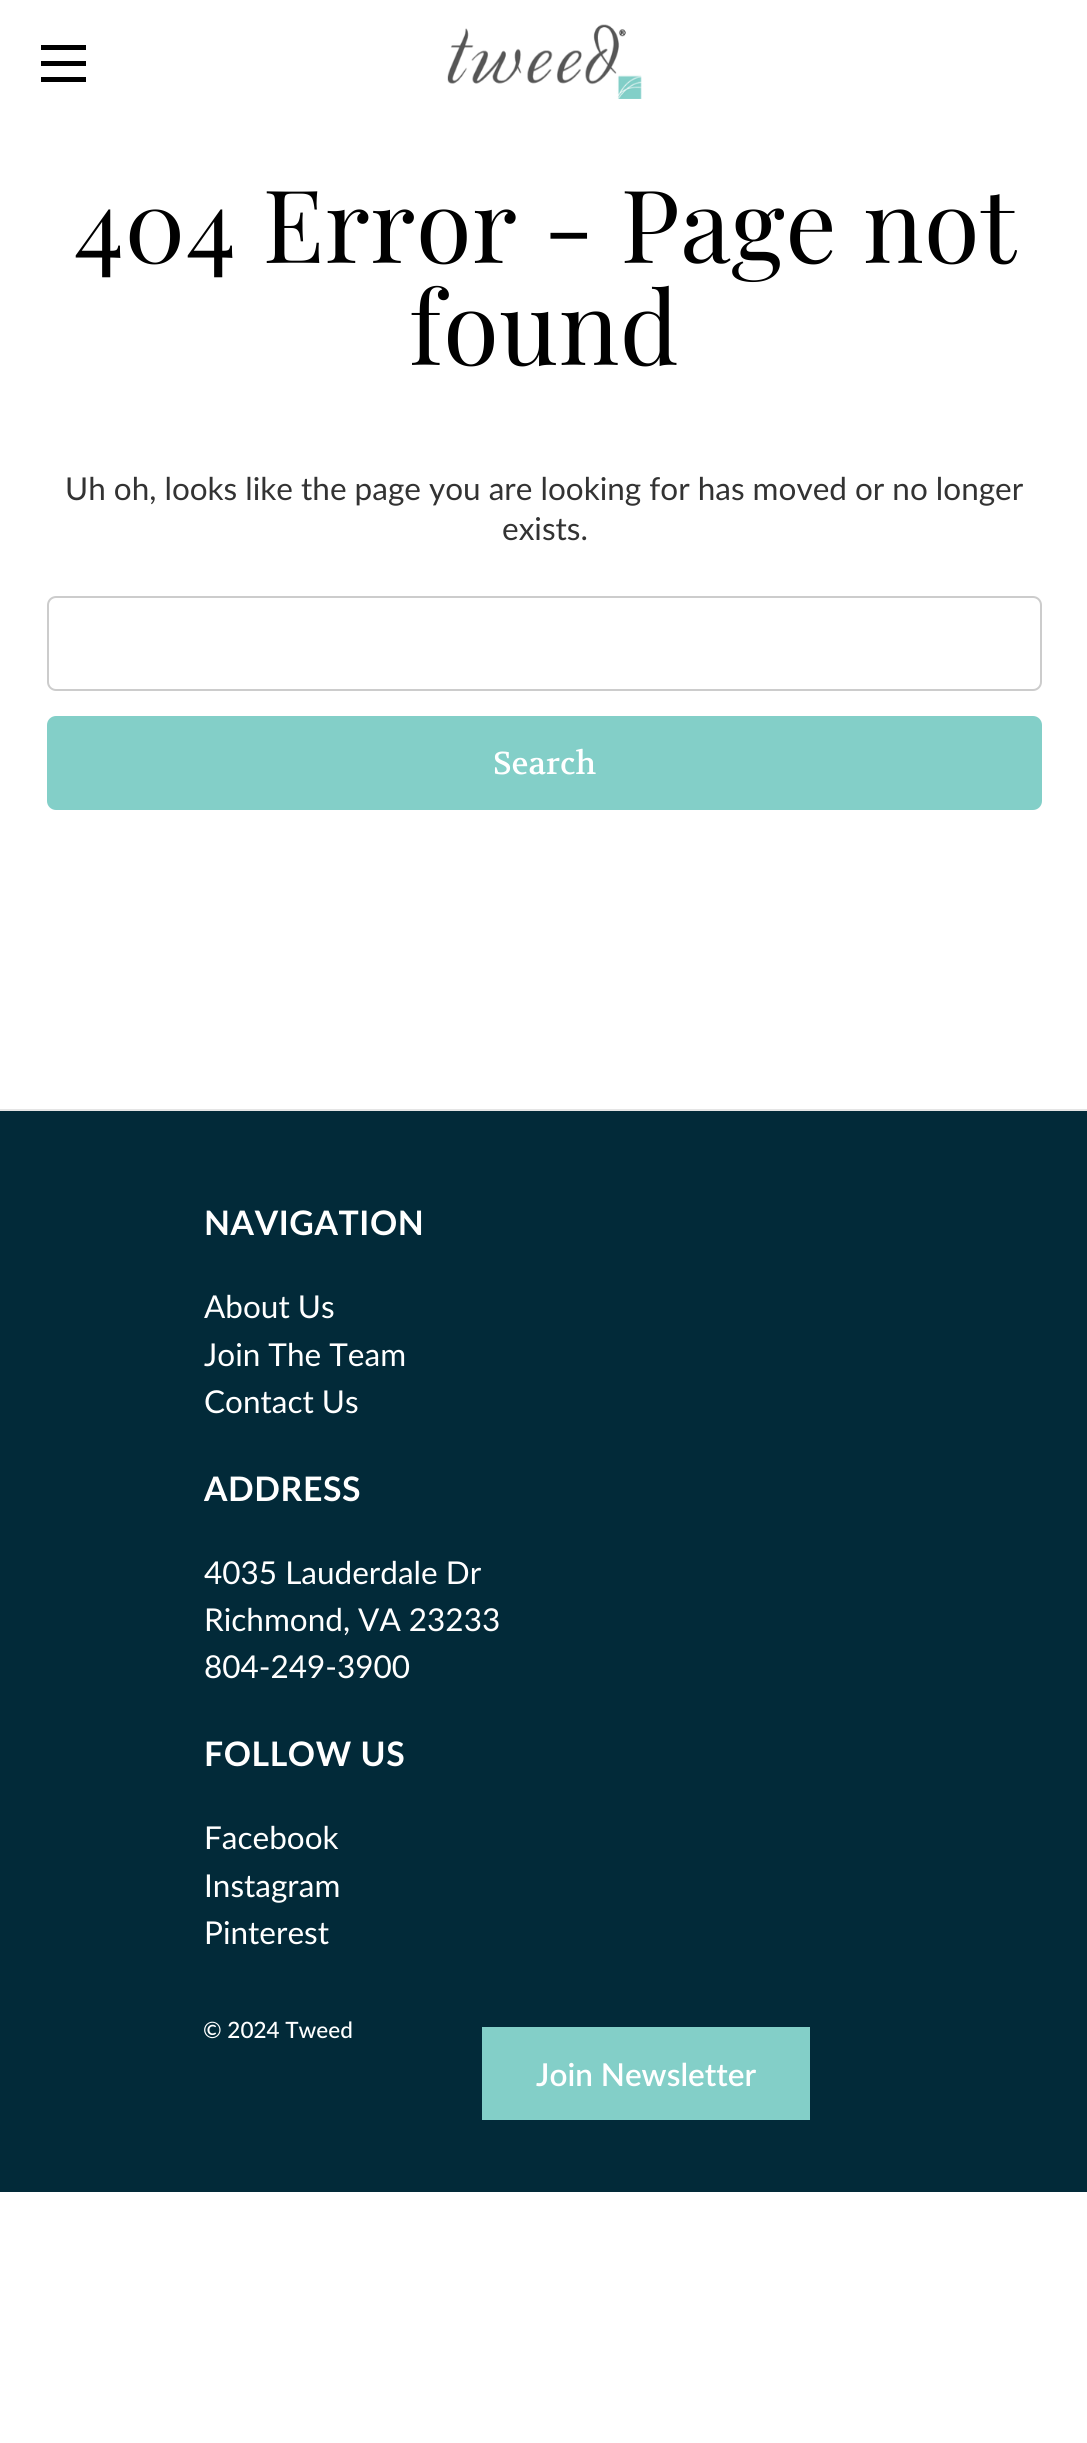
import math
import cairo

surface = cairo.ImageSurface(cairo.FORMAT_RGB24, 1087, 2443)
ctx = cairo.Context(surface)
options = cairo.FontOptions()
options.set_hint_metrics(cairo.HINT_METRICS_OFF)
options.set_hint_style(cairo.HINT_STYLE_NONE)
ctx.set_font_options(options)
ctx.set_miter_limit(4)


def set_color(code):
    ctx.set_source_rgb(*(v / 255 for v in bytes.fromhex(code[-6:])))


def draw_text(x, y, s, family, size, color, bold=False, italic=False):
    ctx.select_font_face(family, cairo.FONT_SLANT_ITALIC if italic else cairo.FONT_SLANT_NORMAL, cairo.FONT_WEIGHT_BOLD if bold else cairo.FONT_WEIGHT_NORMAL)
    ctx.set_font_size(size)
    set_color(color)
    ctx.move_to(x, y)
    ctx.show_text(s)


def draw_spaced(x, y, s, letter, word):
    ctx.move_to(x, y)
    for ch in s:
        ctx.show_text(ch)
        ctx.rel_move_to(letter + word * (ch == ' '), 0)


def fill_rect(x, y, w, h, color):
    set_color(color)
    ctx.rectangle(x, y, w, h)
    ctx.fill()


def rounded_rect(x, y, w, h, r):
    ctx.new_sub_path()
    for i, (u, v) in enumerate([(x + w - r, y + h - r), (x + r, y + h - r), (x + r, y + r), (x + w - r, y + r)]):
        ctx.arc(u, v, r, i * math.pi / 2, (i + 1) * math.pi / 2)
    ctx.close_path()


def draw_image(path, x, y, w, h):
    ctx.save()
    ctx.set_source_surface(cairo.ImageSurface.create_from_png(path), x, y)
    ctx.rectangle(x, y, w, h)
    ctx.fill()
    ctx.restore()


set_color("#ffffff")
ctx.paint()
fill_rect(41, 61, 45, 5, "#000000")
fill_rect(41, 45, 45, 5, "#000000")
fill_rect(41, 77, 45, 5, "#000000")
draw_image("assets/img1.png", 447, 24, 195, 75)
ctx.select_font_face("Playfair Display")
ctx.set_font_size(101.25)
draw_spaced(74, 263, "404 Error - Page not", 0.6, 0)
draw_spaced(409, 365, "found", 0.6, 0)
draw_text(65, 500, "Uh oh, looks like the page you are looking for has moved or no longer", "Lato", 31.5, "#333333")
draw_text(502, 540, "exists.", "Lato", 31.5, "#333333")
rounded_rect(48, 597, 993, 93, 8)
set_color("#cccccc")
ctx.stroke()
set_color("#83cfc8")
rounded_rect(48, 717, 993, 92, 8)
ctx.fill_preserve()
ctx.stroke()
draw_text(493, 774, "Search", "Volkhov", 31.5, "#ffffff")
fill_rect(0, 1111, 1087, 1081, "#022a39")
fill_rect(0, 1109, 1087, 2, "#e5e5e5")
ctx.select_font_face("Lato", cairo.FONT_SLANT_NORMAL, cairo.FONT_WEIGHT_BOLD)
ctx.set_font_size(33.75)
set_color("#ffffff")
draw_spaced(204, 1235, "NAVIGATION", 0.6, 0)
draw_text(204, 1318, "About Us", "Lato", 31.5, "#ffffff")
draw_text(204, 1366, "Join The Team", "Lato", 31.5, "#ffffff")
draw_text(204, 1413, "Contact Us", "Lato", 31.5, "#ffffff")
ctx.select_font_face("Lato", cairo.FONT_SLANT_NORMAL, cairo.FONT_WEIGHT_BOLD)
ctx.set_font_size(33.75)
draw_spaced(204, 1501, "ADDRESS", 0.6, 0)
draw_text(204, 1584, "4035 Lauderdale Dr", "Lato", 31.5, "#ffffff")
draw_text(204, 1631, "Richmond, VA 23233", "Lato", 31.5, "#ffffff")
draw_text(204, 1678, "804-249-3900", "Lato", 31.5, "#ffffff")
ctx.select_font_face("Lato", cairo.FONT_SLANT_NORMAL, cairo.FONT_WEIGHT_BOLD)
ctx.set_font_size(33.75)
draw_spaced(204, 1766, "FOLLOW US", 0.6, 0)
draw_text(204, 1849, "Facebook", "Lato", 31.5, "#ffffff")
draw_text(204, 1897, "Instagram", "Lato", 31.5, "#ffffff")
draw_text(204, 1944, "Pinterest", "Lato", 31.5, "#ffffff")
draw_text(203, 2038, "© 2024 Tweed", "Lato Medium", 22.5, "#ffffff")
fill_rect(482, 2027, 328, 93, "#83cfc8")
draw_text(536, 2086, "Join Newsletter", "Lato SemiBold", 31.5, "#ffffff")
surface.write_to_png("output.png")
